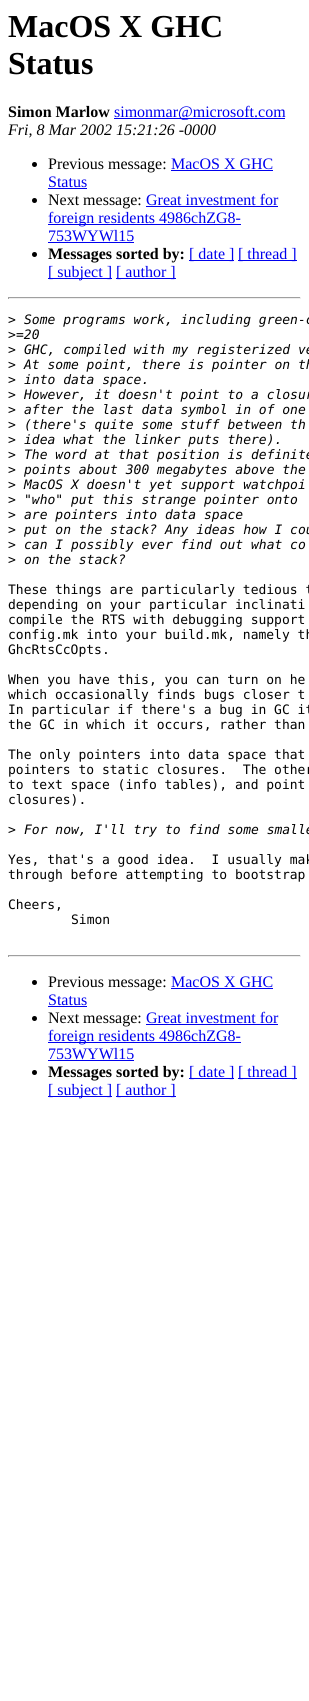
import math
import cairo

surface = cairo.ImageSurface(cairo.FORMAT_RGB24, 309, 1701)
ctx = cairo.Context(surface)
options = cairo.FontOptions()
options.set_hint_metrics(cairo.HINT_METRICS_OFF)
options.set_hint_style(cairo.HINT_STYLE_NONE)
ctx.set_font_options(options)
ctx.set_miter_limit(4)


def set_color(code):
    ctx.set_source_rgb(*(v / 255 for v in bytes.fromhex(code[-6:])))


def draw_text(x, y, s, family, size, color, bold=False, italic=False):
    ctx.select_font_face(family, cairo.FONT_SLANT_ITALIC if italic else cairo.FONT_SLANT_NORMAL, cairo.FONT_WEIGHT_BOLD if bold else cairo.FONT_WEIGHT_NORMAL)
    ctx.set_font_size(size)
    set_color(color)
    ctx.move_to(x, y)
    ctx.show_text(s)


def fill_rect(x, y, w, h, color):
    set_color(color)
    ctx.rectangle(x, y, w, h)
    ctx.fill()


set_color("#ffffff")
ctx.paint()
draw_text(8, 37, "MacOS X GHC", "Liberation Serif", 32, "#000000", bold=True)
draw_text(8, 74, "Status", "Liberation Serif", 32, "#000000", bold=True)
draw_text(8, 117, "Simon Marlow", "Liberation Serif", 16, "#000000", bold=True)
fill_rect(114, 118, 171, 1, "#0000ee")
draw_text(114, 117, "simonmar@microsoft.com", "Liberation Serif", 16, "#0000ee")
draw_text(8, 135, "Fri, 8 Mar 2002 15:21:26 -0000", "Liberation Serif", 16, "#000000", italic=True)
ctx.new_path()
ctx.arc(34.5, 164.5, 2.5, 0, 2 * math.pi)
ctx.fill()
draw_text(48, 169, "Previous message:", "Liberation Serif", 16, "#000000")
draw_text(171, 169, "MacOS X GHC", "Liberation Serif", 16, "#0000ee")
fill_rect(171, 170, 102, 1, "#0000ee")
draw_text(48, 187, "Status", "Liberation Serif", 16, "#0000ee")
fill_rect(48, 188, 39, 1, "#0000ee")
set_color("#000000")
ctx.new_path()
ctx.arc(34.5, 200.5, 2.5, 0, 2 * math.pi)
ctx.fill()
draw_text(48, 205, "Next message:", "Liberation Serif", 16, "#000000")
draw_text(146, 205, "Great investment for", "Liberation Serif", 16, "#0000ee")
fill_rect(146, 206, 132, 1, "#0000ee")
fill_rect(48, 224, 193, 1, "#0000ee")
draw_text(48, 223, "foreign residents 4986chZG8-", "Liberation Serif", 16, "#0000ee")
draw_text(48, 241, "753WYWl15", "Liberation Serif", 16, "#0000ee")
fill_rect(48, 242, 86, 1, "#0000ee")
set_color("#000000")
ctx.new_path()
ctx.arc(34.5, 254.5, 2.5, 0, 2 * math.pi)
ctx.fill()
draw_text(48, 259, "Messages sorted by:", "Liberation Serif", 16, "#000000", bold=True)
fill_rect(189, 260, 45, 1, "#0000ee")
draw_text(189, 259, "[ date ]", "Liberation Serif", 16, "#0000ee")
fill_rect(238, 260, 59, 1, "#0000ee")
draw_text(238, 259, "[ thread ]", "Liberation Serif", 16, "#0000ee")
fill_rect(48, 278, 64, 1, "#0000ee")
draw_text(48, 277, "[ subject ]", "Liberation Serif", 16, "#0000ee")
fill_rect(116, 278, 60, 1, "#0000ee")
draw_text(116, 277, "[ author ]", "Liberation Serif", 16, "#0000ee")
fill_rect(8, 297, 293, 1, "#9f9f9f")
fill_rect(300, 297, 1, 2, "#eeeeee")
fill_rect(8, 298, 293, 1, "#eeeeee")
fill_rect(8, 297, 1, 2, "#9f9f9f")
draw_text(8, 324, ">", "DejaVu Sans Mono", 13, "#000000")
draw_text(24, 324, "Some programs work, including green-c", "DejaVu Sans Mono", 13, "#000000", italic=True)
draw_text(8, 339, ">", "DejaVu Sans Mono", 13, "#000000")
draw_text(16, 339, "=20", "DejaVu Sans Mono", 13, "#000000", italic=True)
draw_text(8, 354, ">", "DejaVu Sans Mono", 13, "#000000")
draw_text(24, 354, "GHC, compiled with my registerized ve", "DejaVu Sans Mono", 13, "#000000", italic=True)
draw_text(8, 369, ">", "DejaVu Sans Mono", 13, "#000000")
draw_text(24, 369, "At some point, there is pointer on th", "DejaVu Sans Mono", 13, "#000000", italic=True)
draw_text(8, 384, ">", "DejaVu Sans Mono", 13, "#000000")
draw_text(24, 384, "into data space.", "DejaVu Sans Mono", 13, "#000000", italic=True)
draw_text(8, 399, ">", "DejaVu Sans Mono", 13, "#000000")
draw_text(24, 399, "However, it doesn't point to a closur", "DejaVu Sans Mono", 13, "#000000", italic=True)
draw_text(8, 414, ">", "DejaVu Sans Mono", 13, "#000000")
draw_text(24, 414, "after the last data symbol in of one", "DejaVu Sans Mono", 13, "#000000", italic=True)
draw_text(8, 429, ">", "DejaVu Sans Mono", 13, "#000000")
draw_text(24, 429, "(there's quite some stuff between th", "DejaVu Sans Mono", 13, "#000000", italic=True)
draw_text(8, 444, ">", "DejaVu Sans Mono", 13, "#000000")
draw_text(24, 444, "idea what the linker puts there).", "DejaVu Sans Mono", 13, "#000000", italic=True)
draw_text(8, 459, ">", "DejaVu Sans Mono", 13, "#000000")
draw_text(24, 459, "The word at that position is definite", "DejaVu Sans Mono", 13, "#000000", italic=True)
draw_text(8, 474, ">", "DejaVu Sans Mono", 13, "#000000")
draw_text(24, 474, "points about 300 megabytes above the", "DejaVu Sans Mono", 13, "#000000", italic=True)
draw_text(8, 489, ">", "DejaVu Sans Mono", 13, "#000000")
draw_text(24, 489, "MacOS X doesn't yet support watchpoi", "DejaVu Sans Mono", 13, "#000000", italic=True)
draw_text(8, 504, ">", "DejaVu Sans Mono", 13, "#000000")
draw_text(24, 504, "\"who\" put this strange pointer onto", "DejaVu Sans Mono", 13, "#000000", italic=True)
draw_text(8, 519, ">", "DejaVu Sans Mono", 13, "#000000")
draw_text(24, 519, "are pointers into data space", "DejaVu Sans Mono", 13, "#000000", italic=True)
draw_text(8, 534, ">", "DejaVu Sans Mono", 13, "#000000")
draw_text(24, 534, "put on the stack? Any ideas how I cou", "DejaVu Sans Mono", 13, "#000000", italic=True)
draw_text(8, 549, ">", "DejaVu Sans Mono", 13, "#000000")
draw_text(24, 549, "can I possibly ever find out what co", "DejaVu Sans Mono", 13, "#000000", italic=True)
draw_text(8, 564, ">", "DejaVu Sans Mono", 13, "#000000")
draw_text(24, 564, "on the stack?", "DejaVu Sans Mono", 13, "#000000", italic=True)
draw_text(8, 594, "These things are particularly tedious t", "DejaVu Sans Mono", 13, "#000000")
draw_text(8, 609, "depending on your particular inclinati", "DejaVu Sans Mono", 13, "#000000")
draw_text(8, 624, "compile the RTS with debugging support", "DejaVu Sans Mono", 13, "#000000")
draw_text(8, 639, "config.mk into your build.mk, namely th", "DejaVu Sans Mono", 13, "#000000")
draw_text(8, 654, "GhcRtsCcOpts.", "DejaVu Sans Mono", 13, "#000000")
draw_text(8, 684, "When you have this, you can turn on he", "DejaVu Sans Mono", 13, "#000000")
draw_text(8, 699, "which occasionally finds bugs closer t", "DejaVu Sans Mono", 13, "#000000")
draw_text(8, 714, "In particular if there's a bug in GC it", "DejaVu Sans Mono", 13, "#000000")
draw_text(8, 729, "the GC in which it occurs, rather than", "DejaVu Sans Mono", 13, "#000000")
draw_text(8, 759, "The only pointers into data space that", "DejaVu Sans Mono", 13, "#000000")
draw_text(8, 774, "pointers to static closures.  The other", "DejaVu Sans Mono", 13, "#000000")
draw_text(8, 789, "to text space (info tables), and point", "DejaVu Sans Mono", 13, "#000000")
draw_text(8, 804, "closures).", "DejaVu Sans Mono", 13, "#000000")
draw_text(8, 834, ">", "DejaVu Sans Mono", 13, "#000000")
draw_text(24, 834, "For now, I'll try to find some smalle", "DejaVu Sans Mono", 13, "#000000", italic=True)
draw_text(8, 864, "Yes, that's a good idea.  I usually mak", "DejaVu Sans Mono", 13, "#000000")
draw_text(8, 879, "through before attempting to bootstrap", "DejaVu Sans Mono", 13, "#000000")
draw_text(8, 909, "Cheers,", "DejaVu Sans Mono", 13, "#000000")
draw_text(71, 924, "Simon", "DejaVu Sans Mono", 13, "#000000")
fill_rect(8, 955, 293, 1, "#9f9f9f")
fill_rect(300, 955, 1, 2, "#eeeeee")
fill_rect(8, 956, 293, 1, "#eeeeee")
fill_rect(8, 955, 1, 2, "#9f9f9f")
set_color("#000000")
ctx.new_path()
ctx.arc(34.5, 982.5, 2.5, 0, 2 * math.pi)
ctx.fill()
draw_text(48, 987, "Previous message:", "Liberation Serif", 16, "#000000")
draw_text(171, 987, "MacOS X GHC", "Liberation Serif", 16, "#0000ee")
fill_rect(171, 988, 102, 1, "#0000ee")
draw_text(48, 1005, "Status", "Liberation Serif", 16, "#0000ee")
fill_rect(48, 1006, 39, 1, "#0000ee")
set_color("#000000")
ctx.new_path()
ctx.arc(34.5, 1018.5, 2.5, 0, 2 * math.pi)
ctx.fill()
draw_text(48, 1023, "Next message:", "Liberation Serif", 16, "#000000")
draw_text(146, 1023, "Great investment for", "Liberation Serif", 16, "#0000ee")
fill_rect(146, 1024, 132, 1, "#0000ee")
fill_rect(48, 1042, 193, 1, "#0000ee")
draw_text(48, 1041, "foreign residents 4986chZG8-", "Liberation Serif", 16, "#0000ee")
draw_text(48, 1059, "753WYWl15", "Liberation Serif", 16, "#0000ee")
fill_rect(48, 1060, 86, 1, "#0000ee")
set_color("#000000")
ctx.new_path()
ctx.arc(34.5, 1072.5, 2.5, 0, 2 * math.pi)
ctx.fill()
draw_text(48, 1077, "Messages sorted by:", "Liberation Serif", 16, "#000000", bold=True)
fill_rect(189, 1078, 45, 1, "#0000ee")
draw_text(189, 1077, "[ date ]", "Liberation Serif", 16, "#0000ee")
fill_rect(238, 1078, 59, 1, "#0000ee")
draw_text(238, 1077, "[ thread ]", "Liberation Serif", 16, "#0000ee")
fill_rect(48, 1096, 64, 1, "#0000ee")
draw_text(48, 1095, "[ subject ]", "Liberation Serif", 16, "#0000ee")
fill_rect(116, 1096, 60, 1, "#0000ee")
draw_text(116, 1095, "[ author ]", "Liberation Serif", 16, "#0000ee")
surface.write_to_png("output.png")
